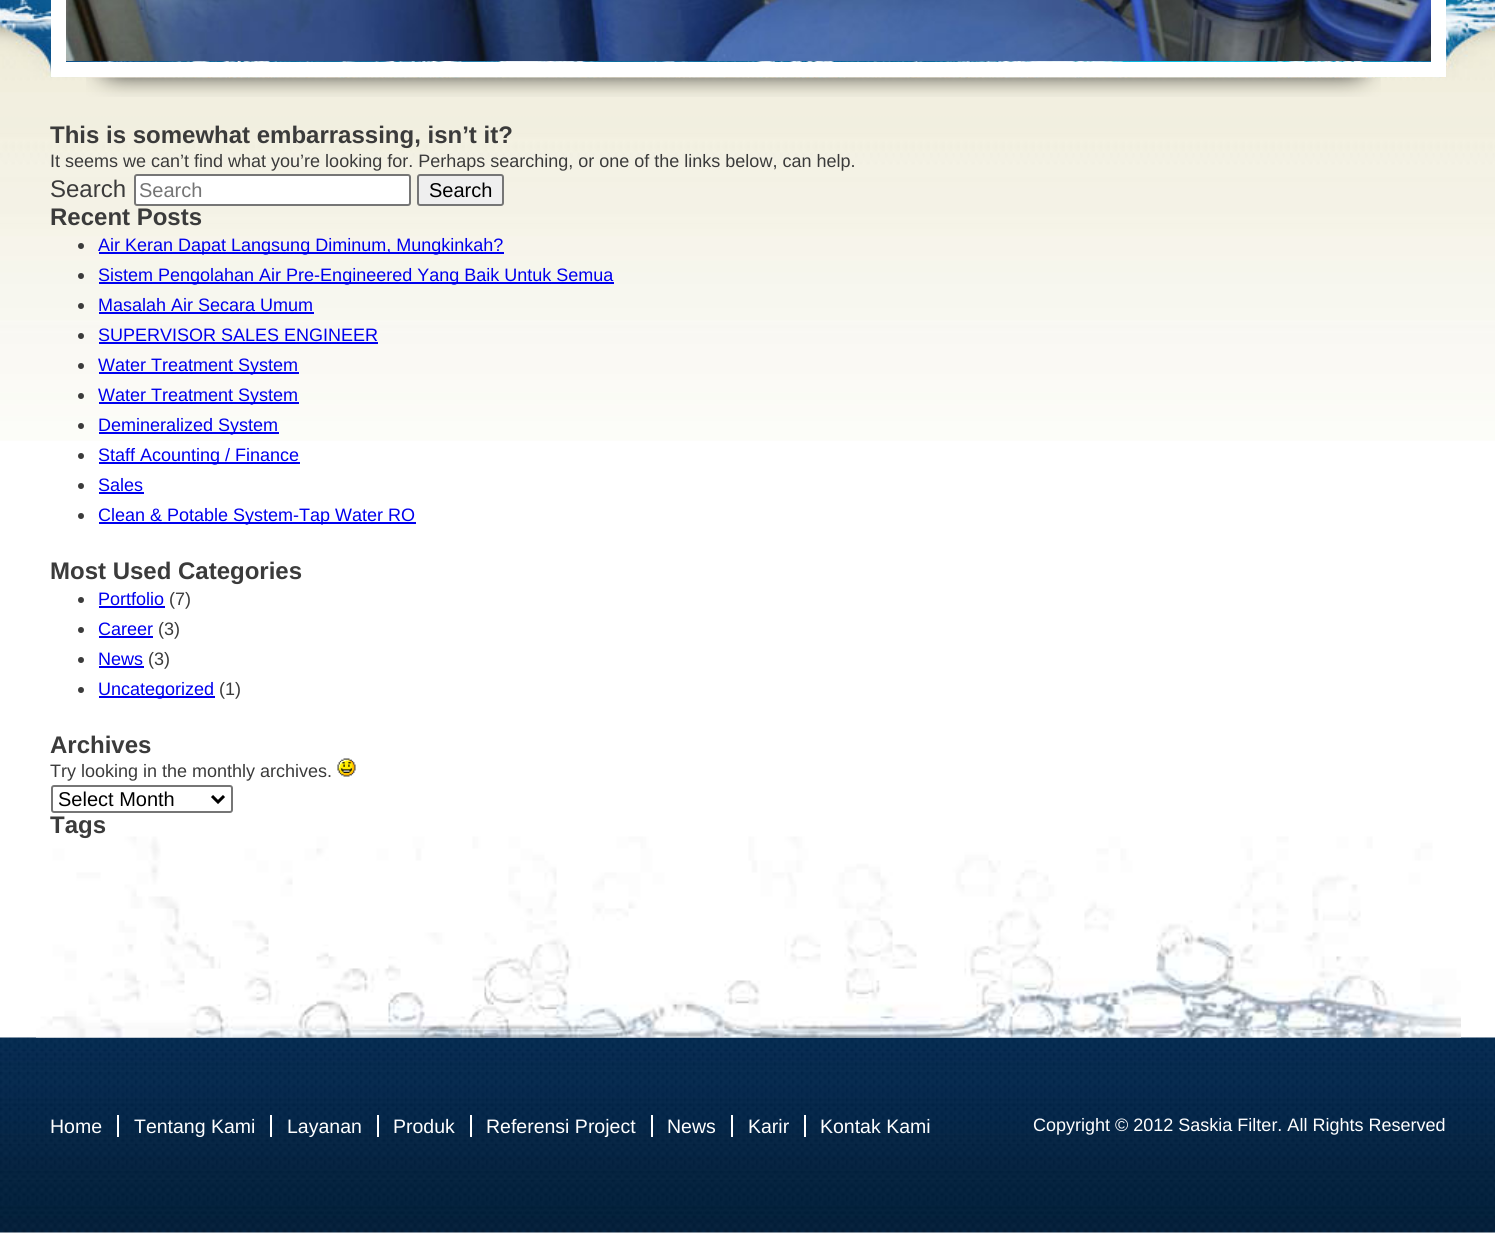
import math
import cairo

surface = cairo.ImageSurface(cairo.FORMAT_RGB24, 1495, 1233)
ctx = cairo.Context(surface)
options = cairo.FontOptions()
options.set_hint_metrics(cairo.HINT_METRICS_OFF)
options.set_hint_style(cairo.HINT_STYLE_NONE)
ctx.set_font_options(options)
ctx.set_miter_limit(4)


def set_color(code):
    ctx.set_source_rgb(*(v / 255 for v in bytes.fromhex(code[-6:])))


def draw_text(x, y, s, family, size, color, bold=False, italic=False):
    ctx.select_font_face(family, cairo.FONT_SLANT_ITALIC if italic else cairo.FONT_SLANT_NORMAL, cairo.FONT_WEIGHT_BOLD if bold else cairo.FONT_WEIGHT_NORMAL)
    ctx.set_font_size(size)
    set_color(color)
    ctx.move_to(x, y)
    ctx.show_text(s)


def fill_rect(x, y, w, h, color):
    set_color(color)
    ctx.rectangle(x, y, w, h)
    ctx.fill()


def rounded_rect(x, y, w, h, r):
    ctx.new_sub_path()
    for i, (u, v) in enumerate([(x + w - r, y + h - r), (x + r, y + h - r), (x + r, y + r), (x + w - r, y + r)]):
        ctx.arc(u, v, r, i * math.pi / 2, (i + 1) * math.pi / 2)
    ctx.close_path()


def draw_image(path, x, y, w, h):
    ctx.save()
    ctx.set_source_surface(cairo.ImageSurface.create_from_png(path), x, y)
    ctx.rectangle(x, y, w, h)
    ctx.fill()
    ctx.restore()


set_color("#ffffff")
ctx.paint()
draw_image("assets/img1.png", 0, 77, 1495, 364)
draw_image("assets/img2.png", 0, 0, 1495, 78)
draw_image("assets/img3.png", 86, 77, 1295, 20)
ctx.rectangle(58.5, -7.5, 1380, 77)
set_color("#ffffff")
ctx.set_line_width(15)
ctx.stroke()
draw_image("assets/img4.png", 66, 0, 1365, 61)
draw_text(50, 143, "This is somewhat embarrassing, isn’t it?", "Liberation Sans", 24, "#3b3b3b", bold=True)
draw_text(50, 167, "It seems we can’t find what you’re looking for. Perhaps searching, or one of the links below, can help.", "Liberation Sans", 18, "#3b3b3b")
draw_text(50, 197, "Search", "Liberation Sans", 24, "#3b3b3b")
set_color("#ffffff")
rounded_rect(135, 175, 275, 30, 2)
ctx.fill_preserve()
set_color("#767676")
ctx.set_line_width(2)
ctx.stroke()
draw_text(139, 197, "Search", "Liberation Sans", 20, "#757575")
set_color("#efefef")
rounded_rect(418, 175, 85, 30, 2)
ctx.fill_preserve()
set_color("#767676")
ctx.stroke()
draw_text(429, 197, "Search", "Liberation Sans", 20, "#000000")
draw_text(50, 225, "Recent Posts", "Liberation Sans", 24, "#3b3b3b", bold=True)
ctx.new_path()
ctx.arc(81, 246, 3, 0, 2 * math.pi)
ctx.fill()
fill_rect(99, 252, 405, 2, "#0000ee")
draw_text(98, 251, "Air Keran Dapat Langsung Diminum, Mungkinkah?", "Liberation Sans", 18, "#0000ee")
set_color("#3b3b3b")
ctx.new_path()
ctx.arc(81, 276, 3, 0, 2 * math.pi)
ctx.fill()
fill_rect(99, 282, 515, 2, "#0000ee")
draw_text(98, 281, "Sistem Pengolahan Air Pre-Engineered Yang Baik Untuk Semua", "Liberation Sans", 18, "#0000ee")
set_color("#3b3b3b")
ctx.new_path()
ctx.arc(81, 306, 3, 0, 2 * math.pi)
ctx.fill()
draw_text(98, 311, "Masalah Air Secara Umum", "Liberation Sans", 18, "#0000ee")
fill_rect(99, 312, 215, 2, "#0000ee")
set_color("#3b3b3b")
ctx.new_path()
ctx.arc(81, 336, 3, 0, 2 * math.pi)
ctx.fill()
draw_text(98, 341, "SUPERVISOR SALES ENGINEER", "Liberation Sans", 18, "#0000ee")
fill_rect(99, 342, 279, 2, "#0000ee")
set_color("#3b3b3b")
ctx.new_path()
ctx.arc(81, 366, 3, 0, 2 * math.pi)
ctx.fill()
fill_rect(99, 372, 200, 2, "#0000ee")
draw_text(98, 371, "Water Treatment System", "Liberation Sans", 18, "#0000ee")
set_color("#3b3b3b")
ctx.new_path()
ctx.arc(81, 396, 3, 0, 2 * math.pi)
ctx.fill()
fill_rect(99, 402, 200, 2, "#0000ee")
draw_text(98, 401, "Water Treatment System", "Liberation Sans", 18, "#0000ee")
set_color("#3b3b3b")
ctx.new_path()
ctx.arc(81, 426, 3, 0, 2 * math.pi)
ctx.fill()
fill_rect(99, 432, 180, 2, "#0000ee")
draw_text(98, 431, "Demineralized System", "Liberation Sans", 18, "#0000ee")
set_color("#3b3b3b")
ctx.new_path()
ctx.arc(81, 456, 3, 0, 2 * math.pi)
ctx.fill()
fill_rect(99, 462, 201, 2, "#0000ee")
draw_text(98, 461, "Staff Acounting / Finance", "Liberation Sans", 18, "#0000ee")
set_color("#3b3b3b")
ctx.new_path()
ctx.arc(81, 486, 3, 0, 2 * math.pi)
ctx.fill()
draw_text(98, 491, "Sales", "Liberation Sans", 18, "#0000ee")
fill_rect(99, 492, 45, 2, "#0000ee")
set_color("#3b3b3b")
ctx.new_path()
ctx.arc(81, 516, 3, 0, 2 * math.pi)
ctx.fill()
fill_rect(99, 522, 317, 2, "#0000ee")
draw_text(98, 521, "Clean & Potable System-Tap Water RO", "Liberation Sans", 18, "#0000ee")
draw_text(50, 579, "Most Used Categories", "Liberation Sans", 24, "#3b3b3b", bold=True)
ctx.new_path()
ctx.arc(81, 600, 3, 0, 2 * math.pi)
ctx.fill()
draw_text(98, 605, "Portfolio", "Liberation Sans", 18, "#0000ee")
fill_rect(99, 606, 66, 2, "#0000ee")
draw_text(169, 605, "(7)", "Liberation Sans", 18, "#3b3b3b")
ctx.new_path()
ctx.arc(81, 630, 3, 0, 2 * math.pi)
ctx.fill()
draw_text(98, 635, "Career", "Liberation Sans", 18, "#0000ee")
fill_rect(99, 636, 54, 2, "#0000ee")
draw_text(158, 635, "(3)", "Liberation Sans", 18, "#3b3b3b")
ctx.new_path()
ctx.arc(81, 660, 3, 0, 2 * math.pi)
ctx.fill()
draw_text(98, 665, "News", "Liberation Sans", 18, "#0000ee")
fill_rect(99, 666, 45, 2, "#0000ee")
draw_text(148, 665, "(3)", "Liberation Sans", 18, "#3b3b3b")
ctx.new_path()
ctx.arc(81, 690, 3, 0, 2 * math.pi)
ctx.fill()
fill_rect(99, 696, 116, 2, "#0000ee")
draw_text(98, 695, "Uncategorized", "Liberation Sans", 18, "#0000ee")
draw_text(219, 695, "(1)", "Liberation Sans", 18, "#3b3b3b")
draw_text(50, 753, "Archives", "Liberation Sans", 24, "#3b3b3b", bold=True)
draw_text(50, 777, "Try looking in the monthly archives.", "Liberation Sans", 18, "#3b3b3b")
draw_image("assets/img5.png", 337, 758, 19, 19)
rounded_rect(52, 786, 180, 26, 2)
set_color("#767676")
ctx.stroke()
ctx.new_path()
ctx.move_to(212, 796)
ctx.line_to(218, 802)
ctx.line_to(224, 796)
set_color("#000000")
ctx.set_line_width(3)
ctx.stroke()
draw_text(58, 806, "Select Month", "Liberation Sans", 20, "#000000")
draw_image("assets/img6.png", 0, 1037, 1495, 196)
draw_image("assets/img7.png", 36, 836, 1425, 202)
draw_text(50, 833, "Tags", "Liberation Sans", 24, "#3b3b3b", bold=True)
draw_text(50, 1133, "Home", "Liberation Sans", 19.5, "#ffffff")
draw_text(134, 1133, "Tentang Kami", "Liberation Sans", 19.5, "#ffffff")
fill_rect(117, 1115, 2, 22, "#ffffff")
draw_text(287, 1133, "Layanan", "Liberation Sans", 19.5, "#ffffff")
fill_rect(270, 1115, 2, 22, "#ffffff")
draw_text(393, 1133, "Produk", "Liberation Sans", 19.5, "#ffffff")
fill_rect(377, 1115, 2, 22, "#ffffff")
draw_text(486, 1133, "Referensi Project", "Liberation Sans", 19.5, "#ffffff")
fill_rect(470, 1115, 2, 22, "#ffffff")
draw_text(667, 1133, "News", "Liberation Sans", 19.5, "#ffffff")
fill_rect(651, 1115, 2, 22, "#ffffff")
draw_text(748, 1133, "Karir", "Liberation Sans", 19.5, "#ffffff")
fill_rect(731, 1115, 2, 22, "#ffffff")
draw_text(820, 1133, "Kontak Kami", "Liberation Sans", 19.5, "#ffffff")
fill_rect(804, 1115, 2, 22, "#ffffff")
draw_text(1033, 1131, "Copyright © 2012 Saskia Filter. All Rights Reserved", "Liberation Sans", 18, "#ffffff")
surface.write_to_png("output.png")
